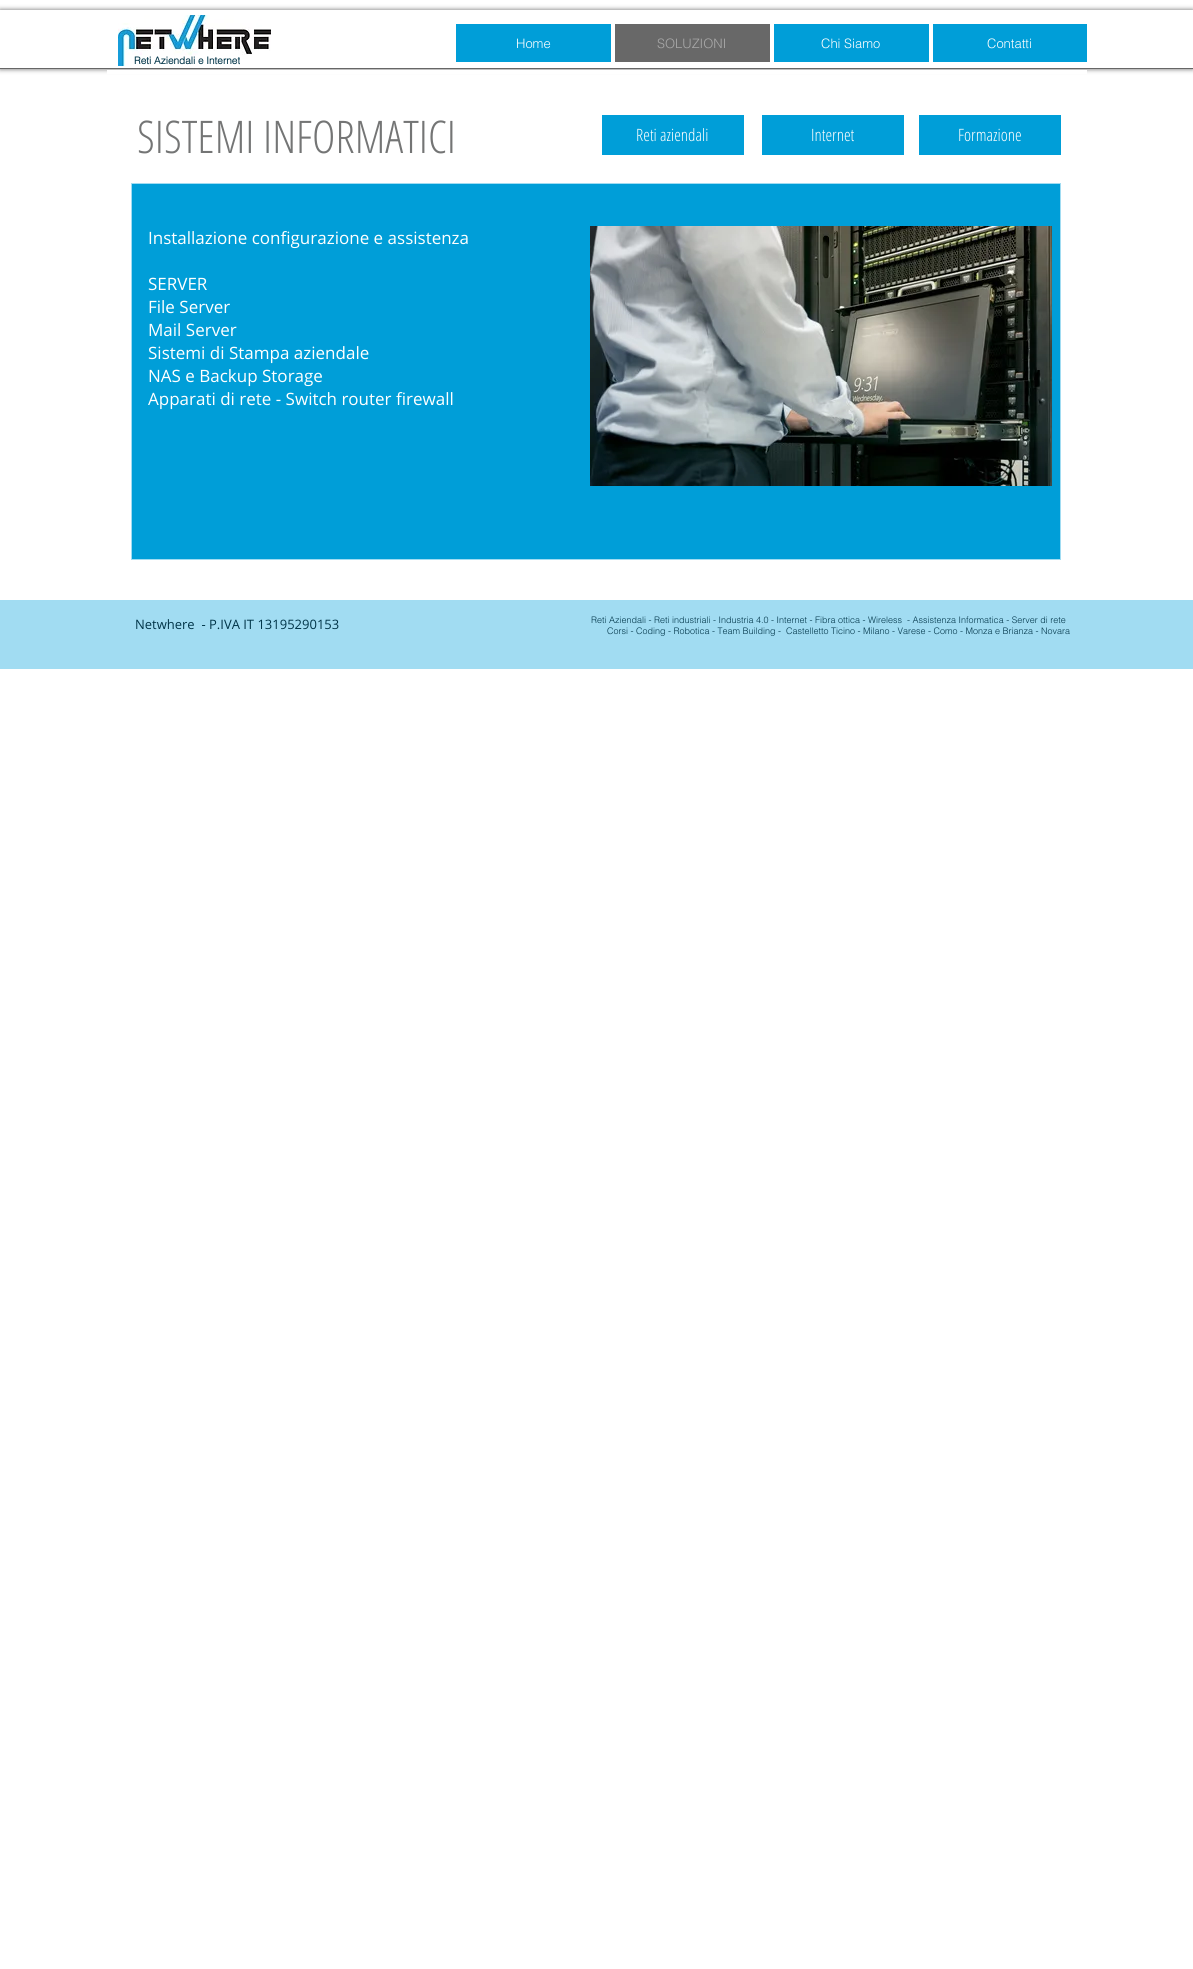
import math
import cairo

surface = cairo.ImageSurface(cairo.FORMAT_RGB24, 1193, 1969)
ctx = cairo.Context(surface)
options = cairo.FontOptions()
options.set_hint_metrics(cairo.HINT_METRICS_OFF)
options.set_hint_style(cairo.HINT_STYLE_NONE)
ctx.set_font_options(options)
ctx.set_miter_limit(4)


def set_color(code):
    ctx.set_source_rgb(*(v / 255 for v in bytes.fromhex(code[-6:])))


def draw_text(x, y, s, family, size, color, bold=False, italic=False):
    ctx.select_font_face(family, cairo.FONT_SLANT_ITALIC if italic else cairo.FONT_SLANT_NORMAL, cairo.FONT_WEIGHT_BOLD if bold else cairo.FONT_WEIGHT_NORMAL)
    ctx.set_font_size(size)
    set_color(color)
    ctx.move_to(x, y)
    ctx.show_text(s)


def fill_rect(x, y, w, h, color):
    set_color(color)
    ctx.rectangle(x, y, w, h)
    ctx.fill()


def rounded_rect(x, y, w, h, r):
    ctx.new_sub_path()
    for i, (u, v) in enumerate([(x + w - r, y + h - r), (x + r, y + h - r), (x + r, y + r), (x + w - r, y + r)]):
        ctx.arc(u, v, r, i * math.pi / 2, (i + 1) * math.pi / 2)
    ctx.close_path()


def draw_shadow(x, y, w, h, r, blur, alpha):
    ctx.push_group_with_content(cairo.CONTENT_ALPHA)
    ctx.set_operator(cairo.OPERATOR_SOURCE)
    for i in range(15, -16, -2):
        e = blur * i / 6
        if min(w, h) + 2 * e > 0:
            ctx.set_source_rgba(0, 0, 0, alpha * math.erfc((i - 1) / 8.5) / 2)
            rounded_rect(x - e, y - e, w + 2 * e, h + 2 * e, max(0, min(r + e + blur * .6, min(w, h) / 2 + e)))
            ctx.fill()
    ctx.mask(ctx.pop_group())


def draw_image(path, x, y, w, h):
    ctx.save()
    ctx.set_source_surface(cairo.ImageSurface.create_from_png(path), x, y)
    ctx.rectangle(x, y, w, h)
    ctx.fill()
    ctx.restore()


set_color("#ffffff")
ctx.paint()
ctx.save()
ctx.set_fill_rule(cairo.FILL_RULE_EVEN_ODD)
ctx.new_path()
ctx.move_to(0, 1)
ctx.line_to(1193, 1)
ctx.line_to(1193, 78)
ctx.line_to(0, 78)
ctx.close_path()
ctx.move_to(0, 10)
ctx.line_to(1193, 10)
ctx.line_to(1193, 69)
ctx.line_to(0, 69)
ctx.close_path()
ctx.clip()
set_color("#000000")
draw_shadow(0, 10, 1193, 59, 0, 2.5, 0.6)
ctx.restore()
fill_rect(0, 68, 1193, 1, "#666666")
draw_image("assets/img1.png", 118, 15, 153, 51)
fill_rect(456, 24, 155, 38, "#009ed8")
draw_text(516, 48, "Home", "helvetica Light", 13, "#ffffff")
fill_rect(615, 24, 155, 38, "#686868")
draw_text(657, 48, "SOLUZIONI", "helvetica Light", 13, "#a9a9a9")
fill_rect(774, 24, 155, 38, "#009ed8")
draw_text(821, 48, "Chi Siamo", "helvetica Light", 13, "#ffffff")
fill_rect(933, 24, 154, 38, "#009ed8")
draw_text(987, 48, "Contatti", "helvetica Light", 13, "#ffffff")
draw_text(134, 64, "Reti Aziendali e Internet", "helvetica", 10, "#003448", bold=True)
fill_rect(107, 70, 980, 4, "#ffffff")
draw_text(137, 153, "SISTEMI INFORMATICI", "Open Sans Condensed Light", 45, "#747575")
fill_rect(602, 115, 142, 40, "#009ed8")
draw_text(636, 141, "Reti aziendali", "Open Sans Condensed Light", 17, "#ffffff")
fill_rect(762, 115, 142, 40, "#009ed8")
draw_text(811, 141, "Internet", "Open Sans Condensed Light", 17, "#ffffff")
fill_rect(919, 115, 142, 40, "#009ed8")
draw_text(958, 141, "Formazione", "Open Sans Condensed Light", 17, "#ffffff")
set_color("#009ed8")
ctx.rectangle(131.5, 183.5, 929, 376)
ctx.fill_preserve()
set_color("#a1dcf2")
ctx.set_line_width(1)
ctx.stroke()
draw_text(148, 244, "Installazione configurazione e assistenza", "Open Sans", 17, "#ffffff")
draw_text(148, 290, "SERVER", "Open Sans", 17, "#ffffff")
draw_text(148, 313, "File Server", "Open Sans", 17, "#ffffff")
draw_text(148, 336, "Mail Server", "Open Sans", 17, "#ffffff")
draw_text(148, 359, "Sistemi di Stampa aziendale", "Open Sans", 17, "#ffffff")
draw_text(148, 382, "NAS e Backup Storage", "Open Sans", 17, "#ffffff")
draw_text(148, 405, "Apparati di rete - Switch router firewall", "Open Sans", 17, "#ffffff")
draw_image("assets/img2.png", 590, 226, 462, 260)
fill_rect(0, 600, 1193, 69, "#a1dcf2")
draw_text(135, 629, "Netwhere  - P.IVA IT 13195290153", "Open Sans", 13, "#003448")
draw_text(591, 623, "Reti Aziendali - Reti industriali - Industria 4.0 - Internet - Fibra ottica - Wireless  - Assistenza Informatica - Server di rete", "helvetica Light", 9, "#003448")
draw_text(607, 634, "Corsi - Coding - Robotica - Team Building -  Castelletto Ticino - Milano - Varese - Como - Monza e Brianza - Novara", "helvetica Light", 9, "#003448")
surface.write_to_png("output.png")
